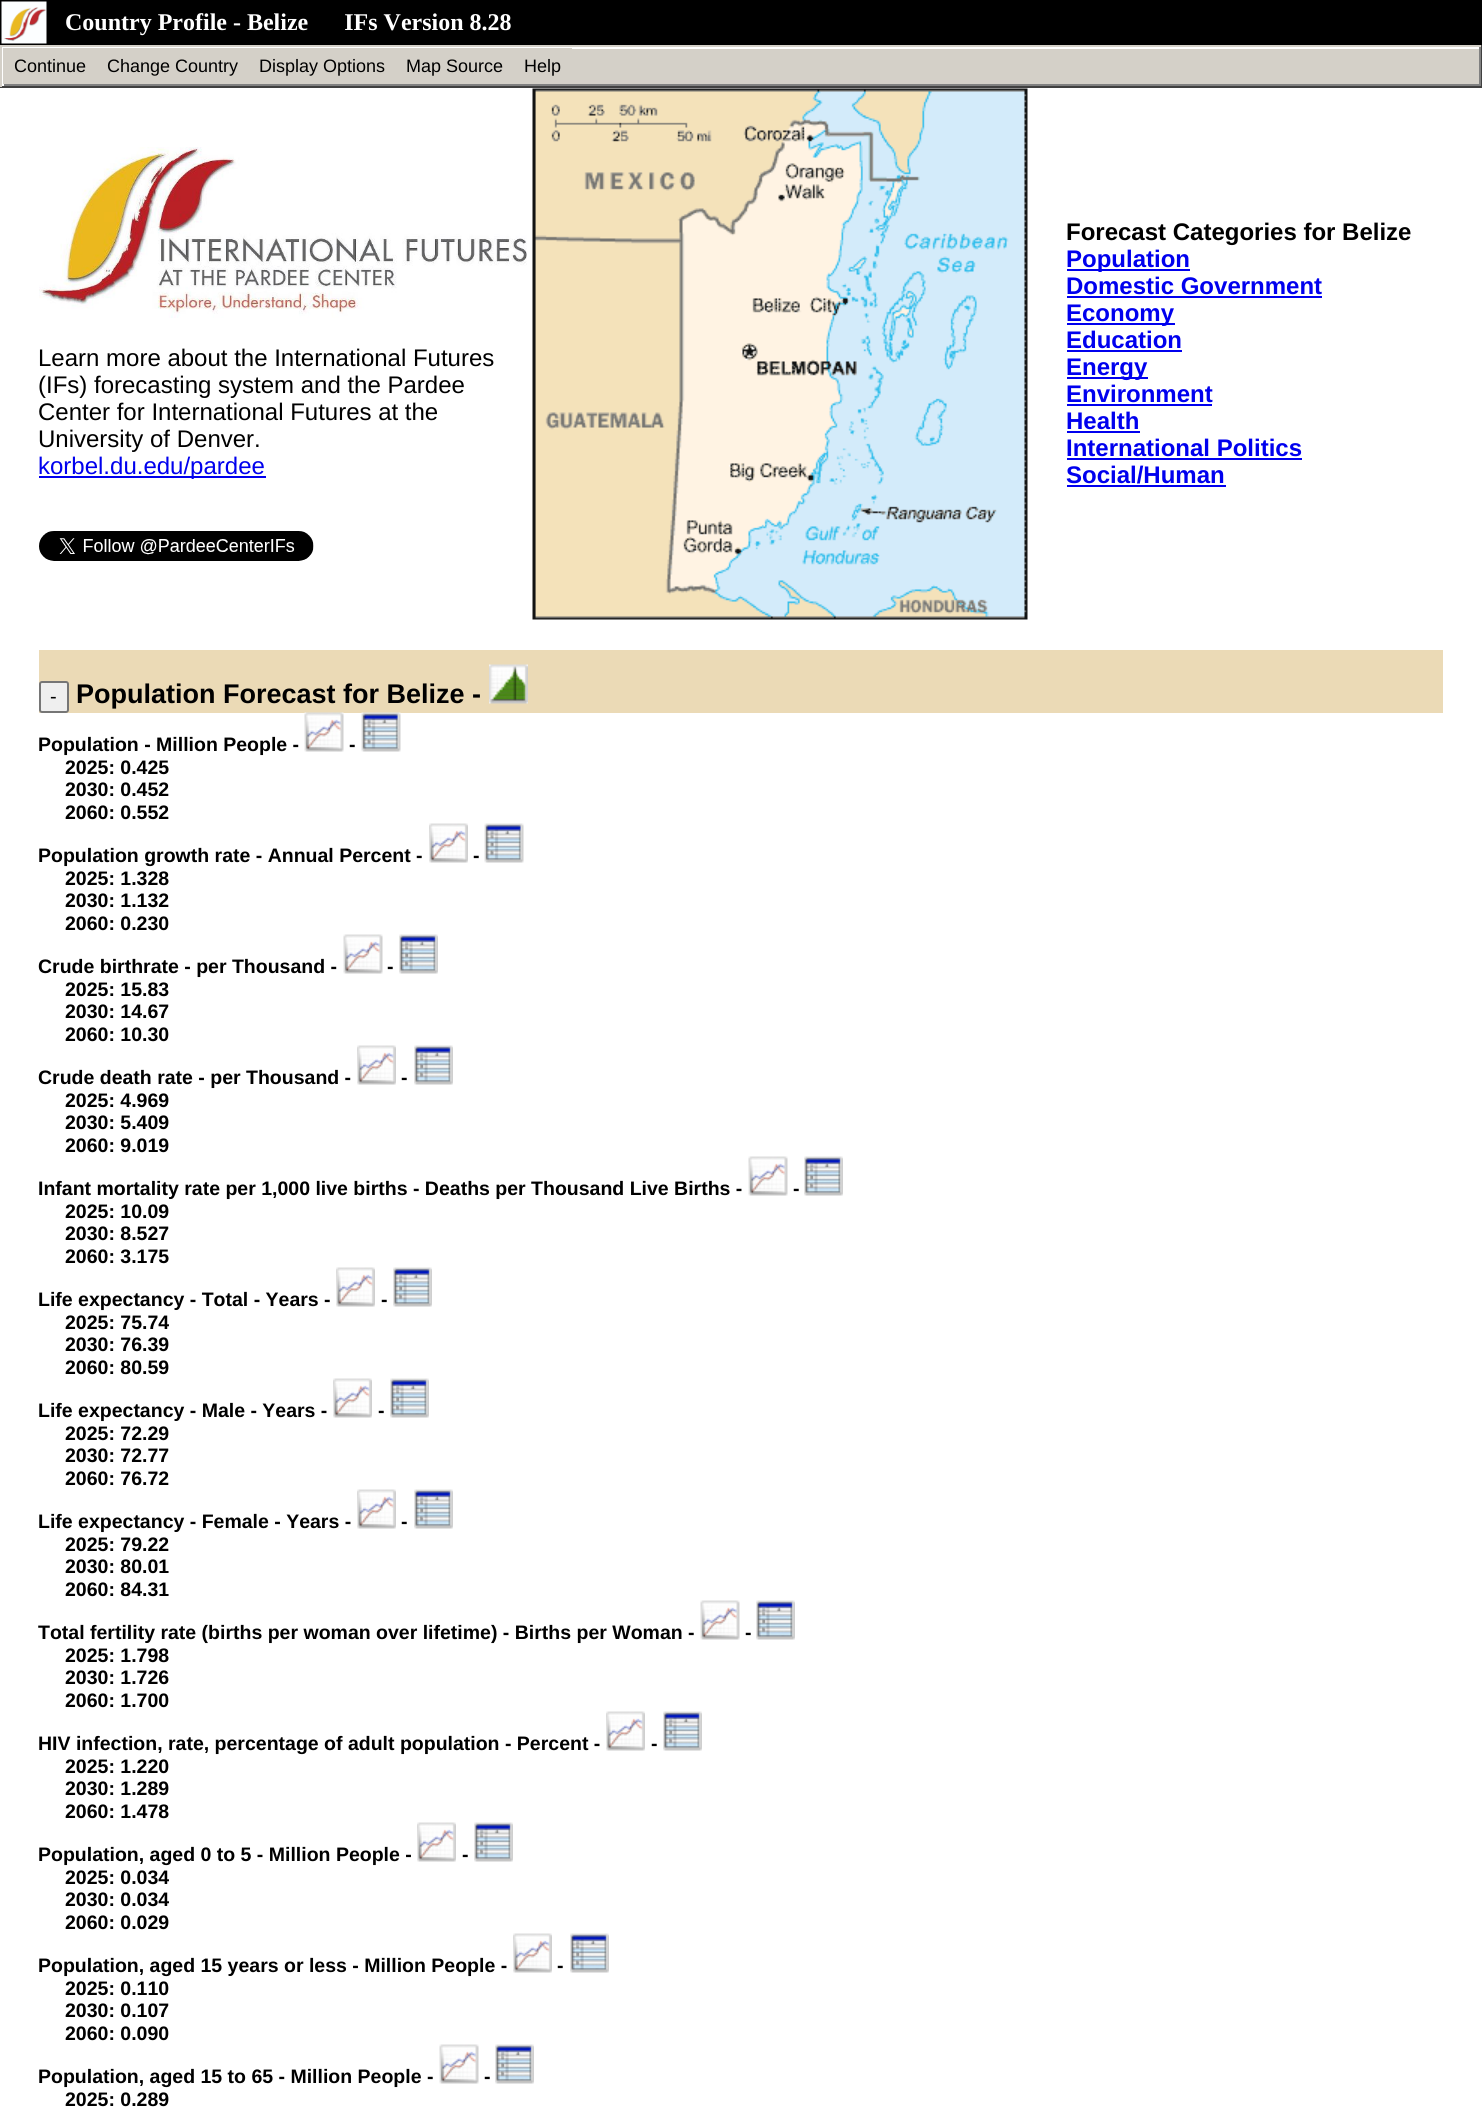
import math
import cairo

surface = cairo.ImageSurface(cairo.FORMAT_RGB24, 1482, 2115)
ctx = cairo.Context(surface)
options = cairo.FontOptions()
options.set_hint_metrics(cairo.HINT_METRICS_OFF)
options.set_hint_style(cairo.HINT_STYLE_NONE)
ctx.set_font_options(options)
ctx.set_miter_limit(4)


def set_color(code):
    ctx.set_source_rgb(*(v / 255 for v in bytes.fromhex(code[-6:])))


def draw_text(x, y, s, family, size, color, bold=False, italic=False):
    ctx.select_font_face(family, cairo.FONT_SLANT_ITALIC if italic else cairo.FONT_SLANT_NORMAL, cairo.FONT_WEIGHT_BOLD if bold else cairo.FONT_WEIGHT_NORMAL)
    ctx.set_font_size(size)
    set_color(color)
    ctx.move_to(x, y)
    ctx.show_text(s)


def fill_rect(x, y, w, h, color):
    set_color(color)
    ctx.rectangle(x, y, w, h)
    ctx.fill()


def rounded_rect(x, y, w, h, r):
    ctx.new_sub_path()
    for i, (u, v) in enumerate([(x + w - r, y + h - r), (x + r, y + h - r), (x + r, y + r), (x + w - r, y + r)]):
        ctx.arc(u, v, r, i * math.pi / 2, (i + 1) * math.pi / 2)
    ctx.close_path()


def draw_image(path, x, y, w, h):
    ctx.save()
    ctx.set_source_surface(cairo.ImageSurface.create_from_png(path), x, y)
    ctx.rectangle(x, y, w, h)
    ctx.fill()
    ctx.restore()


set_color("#ffffff")
ctx.paint()
fill_rect(0, 0, 1482, 45, "#000000")
draw_image("assets/img1.png", 1, 1, 46, 43)
draw_text(65, 30, "Country Profile - Belize      IFs Version 8.28", "Liberation Serif", 24, "#ffffff", bold=True)
fill_rect(2, 45, 1479, 39, "#d4d0c8")
fill_rect(1481, 45, 1, 42, "#404040")
fill_rect(0, 86, 1482, 2, "#404040")
fill_rect(0, 45, 2, 42, "#d4d0c8")
fill_rect(2, 47, 1479, 2, "#ffffff")
fill_rect(1479, 47, 2, 39, "#808080")
fill_rect(2, 84, 1479, 2, "#808080")
fill_rect(2, 47, 2, 39, "#ffffff")
fill_rect(3, 48, 93, 36, "#d4d0c8")
draw_text(14, 72, "Continue", "Liberation Sans", 18, "#000000")
fill_rect(96, 48, 476, 1, "#d4d0c8")
draw_text(107, 72, "Change Country", "Liberation Sans", 18, "#000000")
draw_text(259, 72, "Display Options", "Liberation Sans", 18, "#000000")
draw_text(406, 72, "Map Source", "Liberation Sans", 18, "#000000")
draw_text(524, 72, "Help", "Liberation Sans", 18, "#000000")
draw_image("assets/img2.png", 39, 147, 488, 171)
draw_text(38, 366, "Learn more about the International Futures", "Liberation Sans", 24, "#000000")
draw_text(38, 393, "(IFs) forecasting system and the Pardee", "Liberation Sans", 24, "#000000")
draw_text(38, 420, "Center for International Futures at the", "Liberation Sans", 24, "#000000")
draw_text(38, 447, "University of Denver.", "Liberation Sans", 24, "#000000")
fill_rect(39, 476, 227, 2, "#0000ee")
draw_text(38, 474, "korbel.du.edu/pardee", "Liberation Sans", 24, "#0000ee")
draw_image("assets/img3.png", 39, 531, 275, 30)
draw_image("assets/img4.png", 532, 88, 496, 532)
draw_text(1066, 240, "Forecast Categories for Belize", "Liberation Sans", 24, "#000000", bold=True)
fill_rect(1067, 269, 123, 2, "#0000ee")
draw_text(1066, 267, "Population", "Liberation Sans", 24, "#0000ee", bold=True)
draw_text(1066, 294, "Domestic Government", "Liberation Sans", 24, "#0000ee", bold=True)
fill_rect(1067, 296, 255, 2, "#0000ee")
fill_rect(1067, 323, 108, 2, "#0000ee")
draw_text(1066, 321, "Economy", "Liberation Sans", 24, "#0000ee", bold=True)
draw_text(1066, 348, "Education", "Liberation Sans", 24, "#0000ee", bold=True)
fill_rect(1067, 350, 115, 2, "#0000ee")
fill_rect(1067, 377, 81, 2, "#0000ee")
draw_text(1066, 375, "Energy", "Liberation Sans", 24, "#0000ee", bold=True)
draw_text(1066, 402, "Environment", "Liberation Sans", 24, "#0000ee", bold=True)
fill_rect(1067, 404, 145, 2, "#0000ee")
draw_text(1066, 429, "Health", "Liberation Sans", 24, "#0000ee", bold=True)
fill_rect(1067, 431, 73, 2, "#0000ee")
draw_text(1066, 456, "International Politics", "Liberation Sans", 24, "#0000ee", bold=True)
fill_rect(1067, 458, 235, 2, "#0000ee")
draw_text(1066, 483, "Social/Human", "Liberation Sans", 24, "#0000ee", bold=True)
fill_rect(1067, 485, 159, 2, "#0000ee")
fill_rect(39, 650, 1404, 63, "#ebdab6")
set_color("#efefef")
rounded_rect(40, 682, 28, 30, 2)
ctx.fill_preserve()
set_color("#767676")
ctx.stroke()
draw_text(50, 703, "-", "Liberation Sans", 20, "#000000")
draw_text(76, 703, "Population Forecast for Belize -", "Liberation Sans", 27, "#000000", bold=True)
draw_image("assets/img5.png", 489, 664, 39, 40)
draw_text(38, 751, "Population - Million People -", "Liberation Sans", 19.5, "#000000", bold=True)
draw_image("assets/img6.png", 304, 712, 40, 40)
draw_text(349, 751, "-", "Liberation Sans", 19.5, "#000000", bold=True)
draw_image("assets/img7.png", 361, 712, 40, 40)
draw_text(65, 774, "2025: 0.425", "Liberation Sans", 19.5, "#000000", bold=True)
draw_text(65, 796, "2030: 0.452", "Liberation Sans", 19.5, "#000000", bold=True)
draw_text(65, 819, "2060: 0.552", "Liberation Sans", 19.5, "#000000", bold=True)
draw_text(38, 862, "Population growth rate - Annual Percent -", "Liberation Sans", 19.5, "#000000", bold=True)
draw_image("assets/img8.png", 429, 823, 39, 40)
draw_text(473, 862, "-", "Liberation Sans", 19.5, "#000000", bold=True)
draw_image("assets/img9.png", 484, 823, 40, 40)
draw_text(65, 885, "2025: 1.328", "Liberation Sans", 19.5, "#000000", bold=True)
draw_text(65, 907, "2030: 1.132", "Liberation Sans", 19.5, "#000000", bold=True)
draw_text(65, 930, "2060: 0.230", "Liberation Sans", 19.5, "#000000", bold=True)
draw_text(38, 973, "Crude birthrate - per Thousand -", "Liberation Sans", 19.5, "#000000", bold=True)
draw_image("assets/img10.png", 343, 934, 40, 40)
draw_text(387, 973, "-", "Liberation Sans", 19.5, "#000000", bold=True)
draw_image("assets/img11.png", 399, 934, 39, 40)
draw_text(65, 996, "2025: 15.83", "Liberation Sans", 19.5, "#000000", bold=True)
draw_text(65, 1018, "2030: 14.67", "Liberation Sans", 19.5, "#000000", bold=True)
draw_text(65, 1041, "2060: 10.30", "Liberation Sans", 19.5, "#000000", bold=True)
draw_text(38, 1084, "Crude death rate - per Thousand -", "Liberation Sans", 19.5, "#000000", bold=True)
draw_image("assets/img8.png", 357, 1045, 39, 40)
draw_text(401, 1084, "-", "Liberation Sans", 19.5, "#000000", bold=True)
draw_image("assets/img11.png", 414, 1045, 39, 40)
draw_text(65, 1107, "2025: 4.969", "Liberation Sans", 19.5, "#000000", bold=True)
draw_text(65, 1129, "2030: 5.409", "Liberation Sans", 19.5, "#000000", bold=True)
draw_text(65, 1152, "2060: 9.019", "Liberation Sans", 19.5, "#000000", bold=True)
draw_text(38, 1195, "Infant mortality rate per 1,000 live births - Deaths per Thousand Live Births -", "Liberation Sans", 19.5, "#000000", bold=True)
draw_image("assets/img12.png", 748, 1156, 40, 40)
draw_text(793, 1195, "-", "Liberation Sans", 19.5, "#000000", bold=True)
draw_image("assets/img13.png", 804, 1156, 39, 40)
draw_text(65, 1218, "2025: 10.09", "Liberation Sans", 19.5, "#000000", bold=True)
draw_text(65, 1240, "2030: 8.527", "Liberation Sans", 19.5, "#000000", bold=True)
draw_text(65, 1263, "2060: 3.175", "Liberation Sans", 19.5, "#000000", bold=True)
draw_text(38, 1306, "Life expectancy - Total - Years -", "Liberation Sans", 19.5, "#000000", bold=True)
draw_image("assets/img8.png", 336, 1267, 39, 40)
draw_text(381, 1306, "-", "Liberation Sans", 19.5, "#000000", bold=True)
draw_image("assets/img11.png", 393, 1267, 39, 40)
draw_text(65, 1329, "2025: 75.74", "Liberation Sans", 19.5, "#000000", bold=True)
draw_text(65, 1351, "2030: 76.39", "Liberation Sans", 19.5, "#000000", bold=True)
draw_text(65, 1374, "2060: 80.59", "Liberation Sans", 19.5, "#000000", bold=True)
draw_text(38, 1417, "Life expectancy - Male - Years -", "Liberation Sans", 19.5, "#000000", bold=True)
draw_image("assets/img8.png", 333, 1378, 39, 40)
draw_text(378, 1417, "-", "Liberation Sans", 19.5, "#000000", bold=True)
draw_image("assets/img11.png", 390, 1378, 39, 40)
draw_text(65, 1440, "2025: 72.29", "Liberation Sans", 19.5, "#000000", bold=True)
draw_text(65, 1462, "2030: 72.77", "Liberation Sans", 19.5, "#000000", bold=True)
draw_text(65, 1485, "2060: 76.72", "Liberation Sans", 19.5, "#000000", bold=True)
draw_text(38, 1528, "Life expectancy - Female - Years -", "Liberation Sans", 19.5, "#000000", bold=True)
draw_image("assets/img8.png", 357, 1489, 39, 40)
draw_text(401, 1528, "-", "Liberation Sans", 19.5, "#000000", bold=True)
draw_image("assets/img11.png", 414, 1489, 39, 40)
draw_text(65, 1551, "2025: 79.22", "Liberation Sans", 19.5, "#000000", bold=True)
draw_text(65, 1573, "2030: 80.01", "Liberation Sans", 19.5, "#000000", bold=True)
draw_text(65, 1596, "2060: 84.31", "Liberation Sans", 19.5, "#000000", bold=True)
draw_text(38, 1639, "Total fertility rate (births per woman over lifetime) - Births per Woman -", "Liberation Sans", 19.5, "#000000", bold=True)
draw_image("assets/img14.png", 700, 1600, 40, 40)
draw_text(745, 1639, "-", "Liberation Sans", 19.5, "#000000", bold=True)
draw_image("assets/img15.png", 756, 1600, 39, 40)
draw_text(65, 1662, "2025: 1.798", "Liberation Sans", 19.5, "#000000", bold=True)
draw_text(65, 1684, "2030: 1.726", "Liberation Sans", 19.5, "#000000", bold=True)
draw_text(65, 1707, "2060: 1.700", "Liberation Sans", 19.5, "#000000", bold=True)
draw_text(38, 1750, "HIV infection, rate, percentage of adult population - Percent -", "Liberation Sans", 19.5, "#000000", bold=True)
draw_image("assets/img16.png", 606, 1711, 39, 40)
draw_text(651, 1750, "-", "Liberation Sans", 19.5, "#000000", bold=True)
draw_image("assets/img13.png", 663, 1711, 39, 40)
draw_text(65, 1773, "2025: 1.220", "Liberation Sans", 19.5, "#000000", bold=True)
draw_text(65, 1795, "2030: 1.289", "Liberation Sans", 19.5, "#000000", bold=True)
draw_text(65, 1818, "2060: 1.478", "Liberation Sans", 19.5, "#000000", bold=True)
draw_text(38, 1861, "Population, aged 0 to 5 - Million People -", "Liberation Sans", 19.5, "#000000", bold=True)
draw_image("assets/img8.png", 417, 1822, 39, 40)
draw_text(462, 1861, "-", "Liberation Sans", 19.5, "#000000", bold=True)
draw_image("assets/img17.png", 474, 1822, 39, 40)
draw_text(65, 1884, "2025: 0.034", "Liberation Sans", 19.5, "#000000", bold=True)
draw_text(65, 1906, "2030: 0.034", "Liberation Sans", 19.5, "#000000", bold=True)
draw_text(65, 1929, "2060: 0.029", "Liberation Sans", 19.5, "#000000", bold=True)
draw_text(38, 1972, "Population, aged 15 years or less - Million People -", "Liberation Sans", 19.5, "#000000", bold=True)
draw_image("assets/img18.png", 513, 1933, 39, 40)
draw_text(557, 1972, "-", "Liberation Sans", 19.5, "#000000", bold=True)
draw_image("assets/img11.png", 570, 1933, 39, 40)
draw_text(65, 1995, "2025: 0.110", "Liberation Sans", 19.5, "#000000", bold=True)
draw_text(65, 2017, "2030: 0.107", "Liberation Sans", 19.5, "#000000", bold=True)
draw_text(65, 2040, "2060: 0.090", "Liberation Sans", 19.5, "#000000", bold=True)
draw_text(38, 2083, "Population, aged 15 to 65 - Million People -", "Liberation Sans", 19.5, "#000000", bold=True)
draw_image("assets/img14.png", 439, 2044, 40, 40)
draw_text(484, 2083, "-", "Liberation Sans", 19.5, "#000000", bold=True)
draw_image("assets/img19.png", 495, 2044, 39, 40)
draw_text(65, 2106, "2025: 0.289", "Liberation Sans", 19.5, "#000000", bold=True)
surface.write_to_png("output.png")
